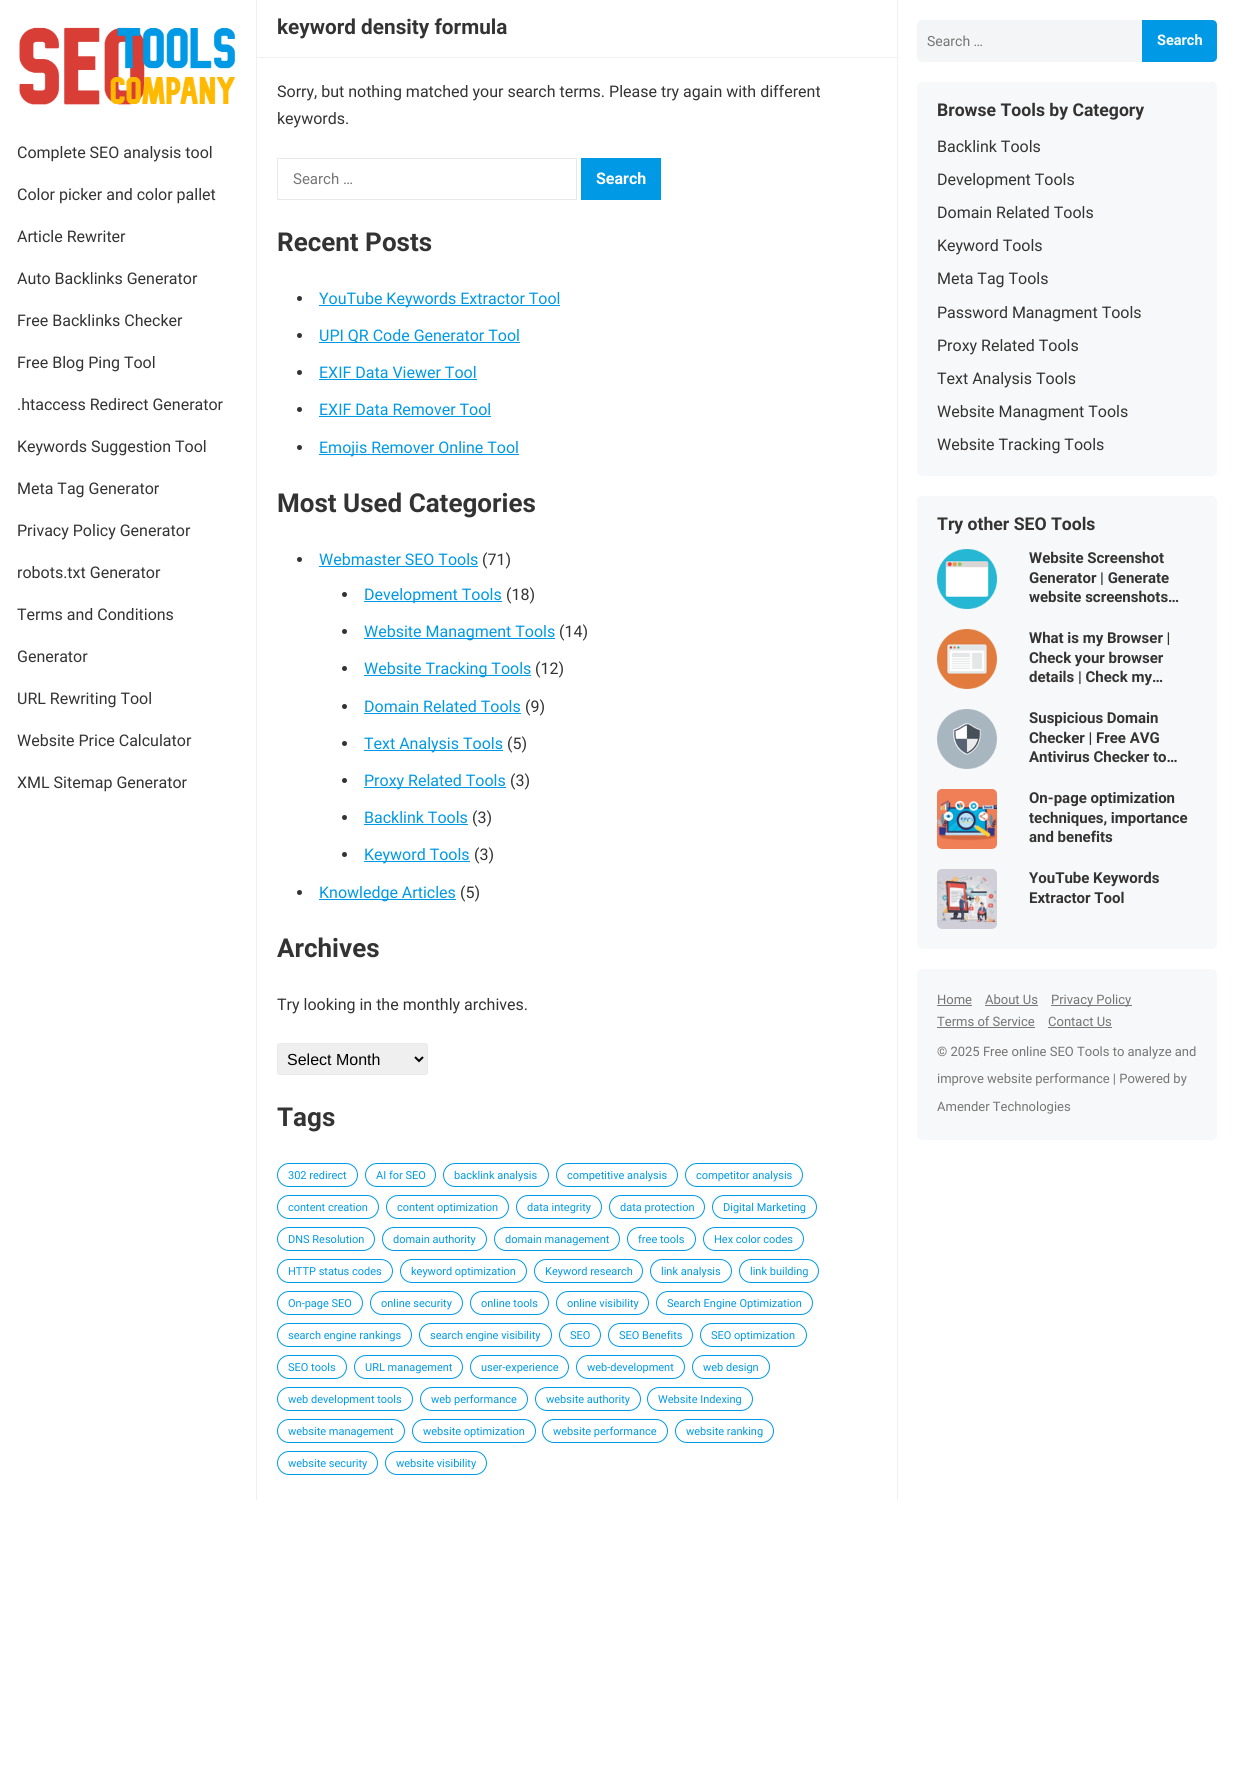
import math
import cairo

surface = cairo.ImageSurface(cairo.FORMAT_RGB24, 1234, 1768)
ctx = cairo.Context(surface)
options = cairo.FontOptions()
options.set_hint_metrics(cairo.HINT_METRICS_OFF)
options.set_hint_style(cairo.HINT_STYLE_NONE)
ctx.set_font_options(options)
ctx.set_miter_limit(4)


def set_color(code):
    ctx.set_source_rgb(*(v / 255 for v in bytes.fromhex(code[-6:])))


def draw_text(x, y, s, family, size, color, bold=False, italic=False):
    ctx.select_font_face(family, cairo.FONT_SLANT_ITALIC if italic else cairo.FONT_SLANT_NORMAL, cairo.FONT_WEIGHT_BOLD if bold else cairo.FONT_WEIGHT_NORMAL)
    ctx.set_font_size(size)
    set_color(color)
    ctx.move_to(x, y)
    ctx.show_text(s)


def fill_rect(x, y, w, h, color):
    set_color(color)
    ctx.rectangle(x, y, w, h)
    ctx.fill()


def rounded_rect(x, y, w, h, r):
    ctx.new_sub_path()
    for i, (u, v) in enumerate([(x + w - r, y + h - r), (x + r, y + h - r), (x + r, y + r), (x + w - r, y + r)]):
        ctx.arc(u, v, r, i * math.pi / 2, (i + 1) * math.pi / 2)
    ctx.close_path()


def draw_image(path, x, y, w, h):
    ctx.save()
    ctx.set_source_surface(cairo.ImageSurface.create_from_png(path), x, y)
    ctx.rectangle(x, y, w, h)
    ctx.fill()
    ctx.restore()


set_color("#ffffff")
ctx.paint()
fill_rect(256, 0, 1, 1500, "#f0f0f0")
fill_rect(897, 0, 1, 1500, "#f0f0f0")
draw_image("assets/img1.png", 19, 27, 216, 78)
draw_text(17, 158, "Complete SEO analysis tool", "Roboto", 16, "#333333")
draw_text(17, 200, "Color picker and color pallet", "Roboto", 16, "#333333")
draw_text(17, 242, "Article Rewriter", "Roboto", 16, "#333333")
draw_text(17, 284, "Auto Backlinks Generator", "Roboto", 16, "#333333")
draw_text(17, 326, "Free Backlinks Checker", "Roboto", 16, "#333333")
draw_text(17, 368, "Free Blog Ping Tool", "Roboto", 16, "#333333")
draw_text(17, 410, ".htaccess Redirect Generator", "Roboto", 16, "#333333")
draw_text(17, 452, "Keywords Suggestion Tool", "Roboto", 16, "#333333")
draw_text(17, 494, "Meta Tag Generator", "Roboto", 16, "#333333")
draw_text(17, 536, "Privacy Policy Generator", "Roboto", 16, "#333333")
draw_text(17, 578, "robots.txt Generator", "Roboto", 16, "#333333")
draw_text(17, 620, "Terms and Conditions", "Roboto", 16, "#333333")
draw_text(17, 662, "Generator", "Roboto", 16, "#333333")
draw_text(17, 704, "URL Rewriting Tool", "Roboto", 16, "#333333")
draw_text(17, 746, "Website Price Calculator", "Roboto", 16, "#333333")
draw_text(17, 788, "XML Sitemap Generator", "Roboto", 16, "#333333")
fill_rect(257, 57, 640, 1, "#f0f0f0")
draw_text(277, 34, "keyword density formula", "Roboto", 20.75, "#333333", bold=True)
draw_text(277, 97, "Sorry, but nothing matched your search terms. Please try again with different", "Roboto", 16, "#333333")
draw_text(277, 124, "keywords.", "Roboto", 16, "#333333")
ctx.rectangle(277.5, 158.5, 299, 41)
set_color("#e9e9e9")
ctx.set_line_width(1)
ctx.stroke()
draw_text(293, 184, "Search …", "Roboto", 15, "#757575")
fill_rect(581, 158, 80, 42, "#0099e5")
draw_text(596, 184, "Search", "Roboto", 16, "#ffffff", bold=True)
draw_text(277, 251, "Recent Posts", "Roboto", 26, "#333333", bold=True)
ctx.new_path()
ctx.arc(299.5, 298.5, 2.5, 0, 2 * math.pi)
ctx.fill()
fill_rect(319, 305, 241, 1, "#0099e5")
draw_text(319, 304, "YouTube Keywords Extractor Tool", "Roboto", 16, "#0099e5")
set_color("#333333")
ctx.new_path()
ctx.arc(299.5, 335.5, 2.5, 0, 2 * math.pi)
ctx.fill()
fill_rect(319, 342, 201, 1, "#0099e5")
draw_text(319, 341, "UPI QR Code Generator Tool", "Roboto", 16, "#0099e5")
set_color("#333333")
ctx.new_path()
ctx.arc(299.5, 372.5, 2.5, 0, 2 * math.pi)
ctx.fill()
draw_text(319, 378, "EXIF Data Viewer Tool", "Roboto", 16, "#0099e5")
fill_rect(319, 379, 158, 1, "#0099e5")
set_color("#333333")
ctx.new_path()
ctx.arc(299.5, 409.5, 2.5, 0, 2 * math.pi)
ctx.fill()
draw_text(319, 415, "EXIF Data Remover Tool", "Roboto", 16, "#0099e5")
fill_rect(319, 416, 172, 1, "#0099e5")
set_color("#333333")
ctx.new_path()
ctx.arc(299.5, 447.5, 2.5, 0, 2 * math.pi)
ctx.fill()
fill_rect(319, 454, 200, 1, "#0099e5")
draw_text(319, 453, "Emojis Remover Online Tool", "Roboto", 16, "#0099e5")
draw_text(277, 512, "Most Used Categories", "Roboto", 26, "#333333", bold=True)
ctx.new_path()
ctx.arc(299.5, 559.5, 2.5, 0, 2 * math.pi)
ctx.fill()
draw_text(319, 565, "Webmaster SEO Tools", "Roboto", 16, "#0099e5")
fill_rect(319, 566, 159, 1, "#0099e5")
draw_text(482, 565, "(71)", "Roboto", 16, "#333333")
ctx.new_path()
ctx.arc(344.5, 594.5, 2.5, 0, 2 * math.pi)
ctx.fill()
fill_rect(364, 601, 138, 1, "#0099e5")
draw_text(364, 600, "Development Tools", "Roboto", 16, "#0099e5")
draw_text(506, 600, "(18)", "Roboto", 16, "#333333")
ctx.new_path()
ctx.arc(344.5, 631.5, 2.5, 0, 2 * math.pi)
ctx.fill()
fill_rect(364, 638, 191, 1, "#0099e5")
draw_text(364, 637, "Website Managment Tools", "Roboto", 16, "#0099e5")
draw_text(559, 637, "(14)", "Roboto", 16, "#333333")
ctx.new_path()
ctx.arc(344.5, 668.5, 2.5, 0, 2 * math.pi)
ctx.fill()
fill_rect(364, 675, 167, 1, "#0099e5")
draw_text(364, 674, "Website Tracking Tools", "Roboto", 16, "#0099e5")
draw_text(535, 674, "(12)", "Roboto", 16, "#333333")
ctx.new_path()
ctx.arc(344.5, 706.5, 2.5, 0, 2 * math.pi)
ctx.fill()
draw_text(364, 712, "Domain Related Tools", "Roboto", 16, "#0099e5")
fill_rect(364, 713, 157, 1, "#0099e5")
draw_text(525, 712, "(9)", "Roboto", 16, "#333333")
ctx.new_path()
ctx.arc(344.5, 743.5, 2.5, 0, 2 * math.pi)
ctx.fill()
fill_rect(364, 750, 139, 1, "#0099e5")
draw_text(364, 749, "Text Analysis Tools", "Roboto", 16, "#0099e5")
draw_text(507, 749, "(5)", "Roboto", 16, "#333333")
ctx.new_path()
ctx.arc(344.5, 780.5, 2.5, 0, 2 * math.pi)
ctx.fill()
fill_rect(364, 787, 142, 1, "#0099e5")
draw_text(364, 786, "Proxy Related Tools", "Roboto", 16, "#0099e5")
draw_text(510, 786, "(3)", "Roboto", 16, "#333333")
ctx.new_path()
ctx.arc(344.5, 817.5, 2.5, 0, 2 * math.pi)
ctx.fill()
draw_text(364, 823, "Backlink Tools", "Roboto", 16, "#0099e5")
fill_rect(364, 824, 104, 1, "#0099e5")
draw_text(472, 823, "(3)", "Roboto", 16, "#333333")
ctx.new_path()
ctx.arc(344.5, 854.5, 2.5, 0, 2 * math.pi)
ctx.fill()
fill_rect(364, 861, 106, 1, "#0099e5")
draw_text(364, 860, "Keyword Tools", "Roboto", 16, "#0099e5")
draw_text(474, 860, "(3)", "Roboto", 16, "#333333")
ctx.new_path()
ctx.arc(299.5, 892.5, 2.5, 0, 2 * math.pi)
ctx.fill()
fill_rect(319, 899, 137, 1, "#0099e5")
draw_text(319, 898, "Knowledge Articles", "Roboto", 16, "#0099e5")
draw_text(460, 898, "(5)", "Roboto", 16, "#333333")
draw_text(277, 957, "Archives", "Roboto", 26, "#333333", bold=True)
draw_text(277, 1010, "Try looking in the monthly archives.", "Roboto", 16, "#333333")
set_color("#efefef")
rounded_rect(277.5, 1043.5, 150, 31, 2.5)
ctx.fill_preserve()
set_color("#e9e9e9")
ctx.stroke()
ctx.new_path()
ctx.move_to(415, 1057)
ctx.line_to(419, 1061)
ctx.line_to(423, 1057)
set_color("#000000")
ctx.set_line_width(2)
ctx.stroke()
draw_text(287, 1065, "Select Month", "Liberation Sans", 16, "#000000")
draw_text(277, 1126, "Tags", "Roboto", 26, "#333333", bold=True)
rounded_rect(277.5, 1163.5, 80, 23, 11.5)
set_color("#0099e5")
ctx.set_line_width(1)
ctx.stroke()
draw_text(288, 1179, "302 redirect", "Roboto", 11, "#0099e5")
rounded_rect(365.5, 1163.5, 70, 23, 11.5)
ctx.stroke()
draw_text(376, 1179, "AI for SEO", "Roboto", 11, "#0099e5")
rounded_rect(443.5, 1163.5, 105, 23, 11.5)
ctx.stroke()
draw_text(454, 1179, "backlink analysis", "Roboto", 11, "#0099e5")
rounded_rect(556.5, 1163.5, 121, 23, 11.5)
ctx.stroke()
draw_text(567, 1179, "competitive analysis", "Roboto", 11, "#0099e5")
rounded_rect(685.5, 1163.5, 117, 23, 11.5)
ctx.stroke()
draw_text(696, 1179, "competitor analysis", "Roboto", 11, "#0099e5")
rounded_rect(277.5, 1195.5, 101, 23, 11.5)
ctx.stroke()
draw_text(288, 1211, "content creation", "Roboto", 11, "#0099e5")
rounded_rect(386.5, 1195.5, 122, 23, 11.5)
ctx.stroke()
draw_text(397, 1211, "content optimization", "Roboto", 11, "#0099e5")
rounded_rect(516.5, 1195.5, 85, 23, 11.5)
ctx.stroke()
draw_text(527, 1211, "data integrity", "Roboto", 11, "#0099e5")
rounded_rect(609.5, 1195.5, 95, 23, 11.5)
ctx.stroke()
draw_text(620, 1211, "data protection", "Roboto", 11, "#0099e5")
rounded_rect(712.5, 1195.5, 104, 23, 11.5)
ctx.stroke()
draw_text(723, 1211, "Digital Marketing", "Roboto", 11, "#0099e5")
rounded_rect(277.5, 1227.5, 97, 23, 11.5)
ctx.stroke()
draw_text(288, 1243, "DNS Resolution", "Roboto", 11, "#0099e5")
rounded_rect(382.5, 1227.5, 104, 23, 11.5)
ctx.stroke()
draw_text(393, 1243, "domain authority", "Roboto", 11, "#0099e5")
rounded_rect(494.5, 1227.5, 125, 23, 11.5)
ctx.stroke()
draw_text(505, 1243, "domain management", "Roboto", 11, "#0099e5")
rounded_rect(627.5, 1227.5, 68, 23, 11.5)
ctx.stroke()
draw_text(638, 1243, "free tools", "Roboto", 11, "#0099e5")
rounded_rect(703.5, 1227.5, 100, 23, 11.5)
ctx.stroke()
draw_text(714, 1243, "Hex color codes", "Roboto", 11, "#0099e5")
rounded_rect(277.5, 1259.5, 115, 23, 11.5)
ctx.stroke()
draw_text(288, 1275, "HTTP status codes", "Roboto", 11, "#0099e5")
rounded_rect(400.5, 1259.5, 126, 23, 11.5)
ctx.stroke()
draw_text(411, 1275, "keyword optimization", "Roboto", 11, "#0099e5")
rounded_rect(534.5, 1259.5, 108, 23, 11.5)
ctx.stroke()
draw_text(545, 1275, "Keyword research", "Roboto", 11, "#0099e5")
rounded_rect(650.5, 1259.5, 81, 23, 11.5)
ctx.stroke()
draw_text(661, 1275, "link analysis", "Roboto", 11, "#0099e5")
rounded_rect(739.5, 1259.5, 79, 23, 11.5)
ctx.stroke()
draw_text(750, 1275, "link building", "Roboto", 11, "#0099e5")
rounded_rect(277.5, 1291.5, 85, 23, 11.5)
ctx.stroke()
draw_text(288, 1307, "On-page SEO", "Roboto", 11, "#0099e5")
rounded_rect(370.5, 1291.5, 92, 23, 11.5)
ctx.stroke()
draw_text(381, 1307, "online security", "Roboto", 11, "#0099e5")
rounded_rect(470.5, 1291.5, 78, 23, 11.5)
ctx.stroke()
draw_text(481, 1307, "online tools", "Roboto", 11, "#0099e5")
rounded_rect(556.5, 1291.5, 92, 23, 11.5)
ctx.stroke()
draw_text(567, 1307, "online visibility", "Roboto", 11, "#0099e5")
rounded_rect(656.5, 1291.5, 156, 23, 11.5)
ctx.stroke()
draw_text(667, 1307, "Search Engine Optimization", "Roboto", 11, "#0099e5")
rounded_rect(277.5, 1323.5, 134, 23, 11.5)
ctx.stroke()
draw_text(288, 1339, "search engine rankings", "Roboto", 11, "#0099e5")
rounded_rect(419.5, 1323.5, 132, 23, 11.5)
ctx.stroke()
draw_text(430, 1339, "search engine visibility", "Roboto", 11, "#0099e5")
rounded_rect(559.5, 1323.5, 41, 23, 11.5)
ctx.stroke()
draw_text(570, 1339, "SEO", "Roboto", 11, "#0099e5")
rounded_rect(608.5, 1323.5, 84, 23, 11.5)
ctx.stroke()
draw_text(619, 1339, "SEO Benefits", "Roboto", 11, "#0099e5")
rounded_rect(700.5, 1323.5, 106, 23, 11.5)
ctx.stroke()
draw_text(711, 1339, "SEO optimization", "Roboto", 11, "#0099e5")
rounded_rect(277.5, 1355.5, 69, 23, 11.5)
ctx.stroke()
draw_text(288, 1371, "SEO tools", "Roboto", 11, "#0099e5")
rounded_rect(354.5, 1355.5, 108, 23, 11.5)
ctx.stroke()
draw_text(365, 1371, "URL management", "Roboto", 11, "#0099e5")
rounded_rect(470.5, 1355.5, 98, 23, 11.5)
ctx.stroke()
draw_text(481, 1371, "user-experience", "Roboto", 11, "#0099e5")
rounded_rect(576.5, 1355.5, 108, 23, 11.5)
ctx.stroke()
draw_text(587, 1371, "web-development", "Roboto", 11, "#0099e5")
rounded_rect(692.5, 1355.5, 77, 23, 11.5)
ctx.stroke()
draw_text(703, 1371, "web design", "Roboto", 11, "#0099e5")
rounded_rect(277.5, 1387.5, 135, 23, 11.5)
ctx.stroke()
draw_text(288, 1403, "web development tools", "Roboto", 11, "#0099e5")
rounded_rect(420.5, 1387.5, 107, 23, 11.5)
ctx.stroke()
draw_text(431, 1403, "web performance", "Roboto", 11, "#0099e5")
rounded_rect(535.5, 1387.5, 105, 23, 11.5)
ctx.stroke()
draw_text(546, 1403, "website authority", "Roboto", 11, "#0099e5")
rounded_rect(647.5, 1387.5, 105, 23, 11.5)
ctx.stroke()
draw_text(658, 1403, "Website Indexing", "Roboto", 11, "#0099e5")
rounded_rect(277.5, 1419.5, 127, 23, 11.5)
ctx.stroke()
draw_text(288, 1435, "website management", "Roboto", 11, "#0099e5")
rounded_rect(412.5, 1419.5, 123, 23, 11.5)
ctx.stroke()
draw_text(423, 1435, "website optimization", "Roboto", 11, "#0099e5")
rounded_rect(542.5, 1419.5, 125, 23, 11.5)
ctx.stroke()
draw_text(553, 1435, "website performance", "Roboto", 11, "#0099e5")
rounded_rect(675.5, 1419.5, 98, 23, 11.5)
ctx.stroke()
draw_text(686, 1435, "website ranking", "Roboto", 11, "#0099e5")
rounded_rect(277.5, 1451.5, 100, 23, 11.5)
ctx.stroke()
draw_text(288, 1467, "website security", "Roboto", 11, "#0099e5")
rounded_rect(385.5, 1451.5, 101, 23, 11.5)
ctx.stroke()
draw_text(396, 1467, "website visibility", "Roboto", 11, "#0099e5")
set_color("#f4f5f6")
rounded_rect(917, 20, 300, 42, 5)
ctx.fill()
draw_text(927, 46, "Search …", "Roboto", 14, "#757575")
set_color("#0099e5")
ctx.new_path()
ctx.move_to(1142, 20)
ctx.line_to(1212, 20)
ctx.curve_to(1215, 20, 1217, 22, 1217, 25)
ctx.line_to(1217, 57)
ctx.curve_to(1217, 60, 1215, 62, 1212, 62)
ctx.line_to(1142, 62)
ctx.close_path()
ctx.fill()
draw_text(1157, 45, "Search", "Roboto", 14.5, "#ffffff", bold=True)
set_color("#f7f8f9")
rounded_rect(917, 82, 300, 394, 5)
ctx.fill()
draw_text(937, 116, "Browse Tools by Category", "Roboto", 17.6, "#333333", bold=True)
draw_text(937, 152, "Backlink Tools", "Roboto", 16, "#333333")
draw_text(937, 185, "Development Tools", "Roboto", 16, "#333333")
draw_text(937, 218, "Domain Related Tools", "Roboto", 16, "#333333")
draw_text(937, 251, "Keyword Tools", "Roboto", 16, "#333333")
draw_text(937, 284, "Meta Tag Tools", "Roboto", 16, "#333333")
draw_text(937, 318, "Password Managment Tools", "Roboto", 16, "#333333")
draw_text(937, 351, "Proxy Related Tools", "Roboto", 16, "#333333")
draw_text(937, 384, "Text Analysis Tools", "Roboto", 16, "#333333")
draw_text(937, 417, "Website Managment Tools", "Roboto", 16, "#333333")
draw_text(937, 450, "Website Tracking Tools", "Roboto", 16, "#333333")
set_color("#f7f8f9")
rounded_rect(917, 496, 300, 453, 5)
ctx.fill()
draw_text(937, 530, "Try other SEO Tools", "Roboto", 17.6, "#333333", bold=True)
draw_image("assets/img2.png", 937, 549, 60, 60)
draw_text(1029, 563, "Website Screenshot", "Roboto", 15, "#333333", bold=True)
draw_text(1029, 583, "Generator | Generate", "Roboto", 15, "#333333", bold=True)
draw_text(1029, 602, "website screenshots…", "Roboto", 15, "#333333", bold=True)
draw_image("assets/img3.png", 937, 629, 60, 60)
draw_text(1029, 643, "What is my Browser |", "Roboto", 15, "#333333", bold=True)
draw_text(1029, 663, "Check your browser", "Roboto", 15, "#333333", bold=True)
draw_text(1029, 682, "details | Check my…", "Roboto", 15, "#333333", bold=True)
draw_image("assets/img4.png", 937, 709, 60, 60)
draw_text(1029, 723, "Suspicious Domain", "Roboto", 15, "#333333", bold=True)
draw_text(1029, 743, "Checker | Free AVG", "Roboto", 15, "#333333", bold=True)
draw_text(1029, 762, "Antivirus Checker to…", "Roboto", 15, "#333333", bold=True)
draw_image("assets/img5.png", 937, 789, 60, 60)
draw_text(1029, 803, "On-page optimization", "Roboto", 15, "#333333", bold=True)
draw_text(1029, 823, "techniques, importance", "Roboto", 15, "#333333", bold=True)
draw_text(1029, 842, "and benefits", "Roboto", 15, "#333333", bold=True)
draw_image("assets/img6.png", 937, 869, 60, 60)
draw_text(1029, 883, "YouTube Keywords", "Roboto", 15, "#333333", bold=True)
draw_text(1029, 903, "Extractor Tool", "Roboto", 15, "#333333", bold=True)
set_color("#f7f8f9")
rounded_rect(917, 969, 300, 171, 5)
ctx.fill()
draw_text(937, 1004, "Home", "Roboto", 13, "#757575")
fill_rect(937, 1005, 35, 1, "#777777")
draw_text(985, 1004, "About Us", "Roboto", 13, "#757575")
fill_rect(985, 1005, 53, 1, "#777777")
fill_rect(1051, 1005, 81, 1, "#777777")
draw_text(1051, 1004, "Privacy Policy", "Roboto", 13, "#757575")
draw_text(937, 1026, "Terms of Service", "Roboto", 13, "#757575")
fill_rect(937, 1027, 98, 1, "#777777")
draw_text(1048, 1026, "Contact Us", "Roboto", 13, "#757575")
fill_rect(1048, 1027, 64, 1, "#777777")
draw_text(937, 1056, "© 2025 Free online SEO Tools to analyze and", "Roboto", 13, "#757575")
draw_text(937, 1083, "improve website performance | Powered by", "Roboto", 13, "#757575")
draw_text(937, 1111, "Amender Technologies", "Roboto", 13, "#757575")
surface.write_to_png("output.png")
